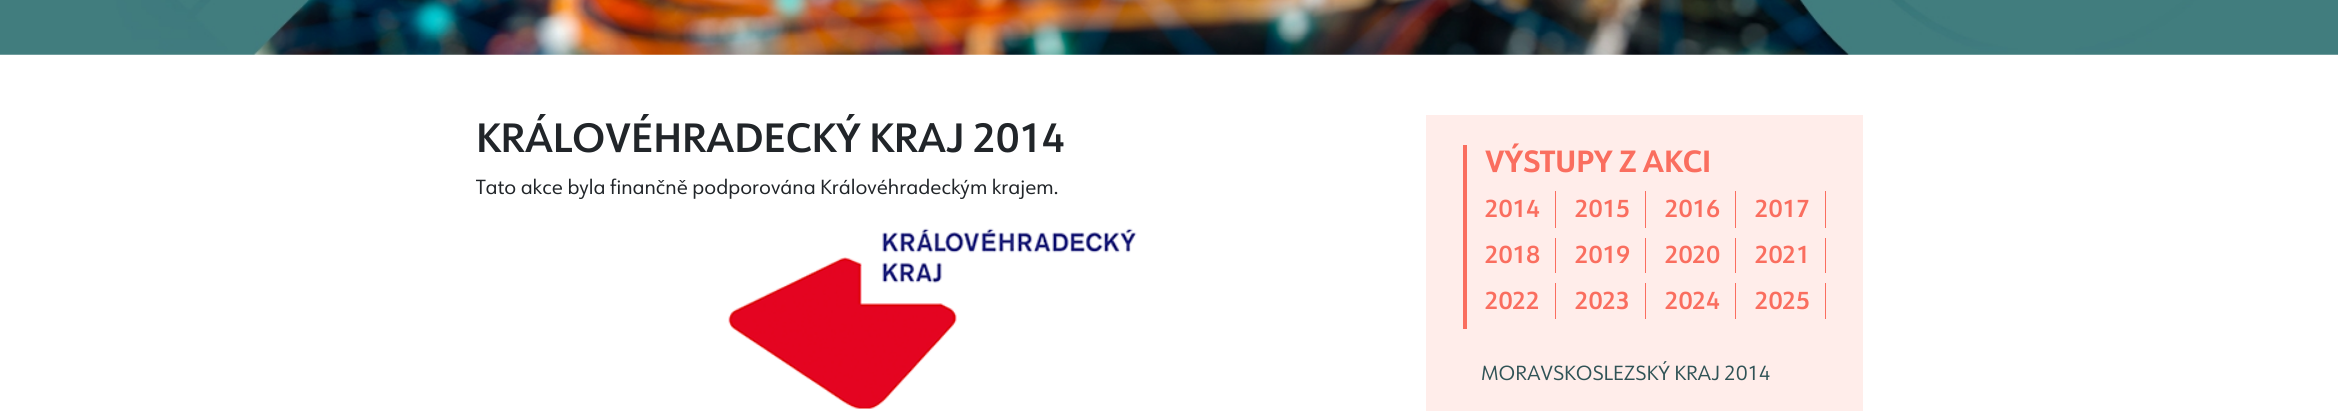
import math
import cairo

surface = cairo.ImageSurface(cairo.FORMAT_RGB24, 2338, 411)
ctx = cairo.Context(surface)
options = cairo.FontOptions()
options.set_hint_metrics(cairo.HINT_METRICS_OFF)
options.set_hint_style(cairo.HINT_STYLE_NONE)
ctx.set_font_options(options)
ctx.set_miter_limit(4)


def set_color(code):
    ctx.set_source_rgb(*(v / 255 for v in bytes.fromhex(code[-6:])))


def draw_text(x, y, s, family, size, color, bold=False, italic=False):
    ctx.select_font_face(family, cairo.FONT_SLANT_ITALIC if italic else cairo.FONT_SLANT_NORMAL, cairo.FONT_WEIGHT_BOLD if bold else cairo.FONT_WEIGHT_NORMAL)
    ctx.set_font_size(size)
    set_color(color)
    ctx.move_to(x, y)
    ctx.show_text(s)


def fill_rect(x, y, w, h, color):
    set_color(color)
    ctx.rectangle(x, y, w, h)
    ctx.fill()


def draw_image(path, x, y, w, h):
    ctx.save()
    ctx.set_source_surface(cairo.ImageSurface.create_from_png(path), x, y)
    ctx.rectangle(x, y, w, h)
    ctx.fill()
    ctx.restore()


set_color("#ffffff")
ctx.paint()
draw_image("assets/img1.png", 0, 0, 2338, 55)
draw_text(476, 152, "KRÁLOVÉHRADECKÝ KRAJ 2014", "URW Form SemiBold", 40, "#212529")
draw_text(476, 194, "Tato akce byla finančně podporována Královéhradeckým krajem.", "URW Form", 20, "#212529")
draw_image("assets/img2.png", 728, 228, 409, 181)
fill_rect(1426, 115, 437, 296, "#ffedea")
fill_rect(1463, 145, 4, 184, "#fa6e5f")
draw_text(1485, 172, "VÝSTUPY Z AKCI", "URW Form", 30, "#fa6e5f", bold=True)
fill_rect(1555, 191, 1, 37, "#fa6e5f")
draw_text(1485, 217, "2014", "URW Form SemiBold", 24, "#fa6e5f")
fill_rect(1645, 191, 1, 37, "#fa6e5f")
draw_text(1575, 217, "2015", "URW Form SemiBold", 24, "#fa6e5f")
fill_rect(1735, 191, 1, 37, "#fa6e5f")
draw_text(1665, 217, "2016", "URW Form SemiBold", 24, "#fa6e5f")
fill_rect(1825, 191, 1, 37, "#fa6e5f")
draw_text(1755, 217, "2017", "URW Form SemiBold", 24, "#fa6e5f")
fill_rect(1555, 238, 1, 35, "#fa6e5f")
draw_text(1485, 263, "2018", "URW Form SemiBold", 24, "#fa6e5f")
fill_rect(1645, 238, 1, 35, "#fa6e5f")
draw_text(1575, 263, "2019", "URW Form SemiBold", 24, "#fa6e5f")
fill_rect(1735, 238, 1, 35, "#fa6e5f")
draw_text(1665, 263, "2020", "URW Form SemiBold", 24, "#fa6e5f")
fill_rect(1825, 238, 1, 35, "#fa6e5f")
draw_text(1755, 263, "2021", "URW Form SemiBold", 24, "#fa6e5f")
fill_rect(1555, 283, 1, 36, "#fa6e5f")
draw_text(1485, 309, "2022", "URW Form SemiBold", 24, "#fa6e5f")
fill_rect(1645, 283, 1, 36, "#fa6e5f")
draw_text(1575, 309, "2023", "URW Form SemiBold", 24, "#fa6e5f")
fill_rect(1735, 283, 1, 36, "#fa6e5f")
draw_text(1665, 309, "2024", "URW Form SemiBold", 24, "#fa6e5f")
fill_rect(1825, 283, 1, 36, "#fa6e5f")
draw_text(1755, 309, "2025", "URW Form SemiBold", 24, "#fa6e5f")
draw_text(1481, 380, "MORAVSKOSLEZSKÝ KRAJ 2014", "URW Form", 20, "#305356")
surface.write_to_png("output.png")
